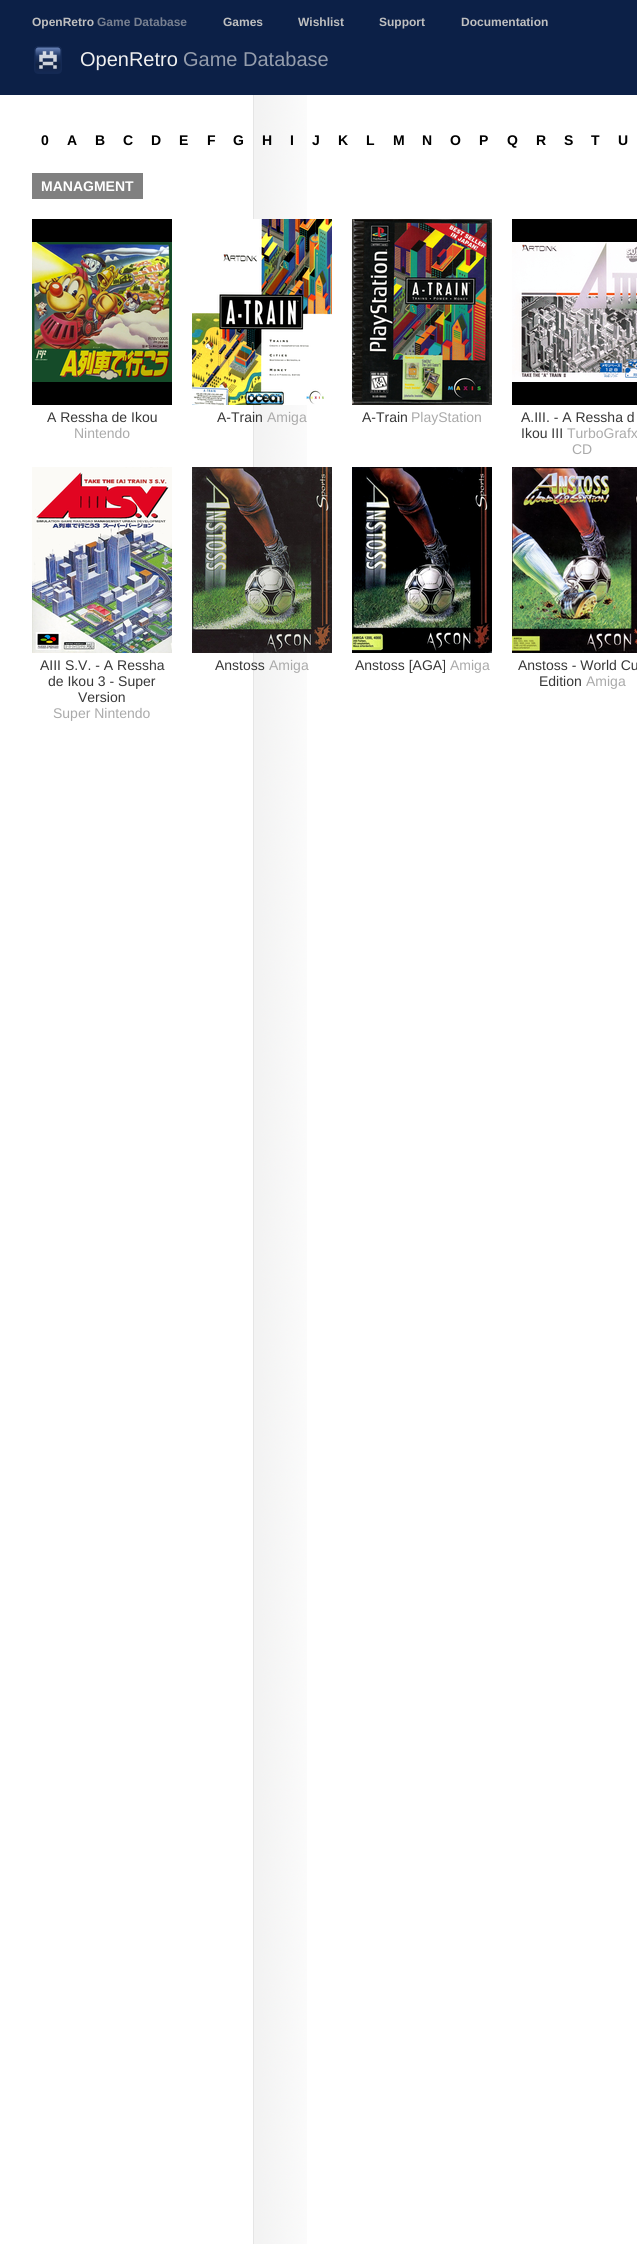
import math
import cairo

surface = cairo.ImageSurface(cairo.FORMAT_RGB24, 637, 2244)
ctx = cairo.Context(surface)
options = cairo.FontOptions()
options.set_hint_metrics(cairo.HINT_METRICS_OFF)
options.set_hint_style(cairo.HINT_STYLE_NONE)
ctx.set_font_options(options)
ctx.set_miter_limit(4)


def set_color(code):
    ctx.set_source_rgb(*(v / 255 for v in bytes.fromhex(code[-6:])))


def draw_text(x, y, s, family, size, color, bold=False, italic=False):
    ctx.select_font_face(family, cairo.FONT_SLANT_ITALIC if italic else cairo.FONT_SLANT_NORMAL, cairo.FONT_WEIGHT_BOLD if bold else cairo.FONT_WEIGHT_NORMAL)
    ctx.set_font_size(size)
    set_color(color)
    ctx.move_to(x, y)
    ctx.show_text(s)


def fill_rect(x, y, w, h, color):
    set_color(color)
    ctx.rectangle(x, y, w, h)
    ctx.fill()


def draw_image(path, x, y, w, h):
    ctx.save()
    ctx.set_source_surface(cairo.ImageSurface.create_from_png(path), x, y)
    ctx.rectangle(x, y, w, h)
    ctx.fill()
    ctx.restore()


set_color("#ffffff")
ctx.paint()
draw_image("assets/img1.png", 253, 95, 54, 2149)
fill_rect(0, 0, 637, 95, "#0c2047")
draw_text(32, 26, "OpenRetro", "Liberation Sans", 12, "#c0c0c0", bold=True)
draw_text(97, 26, "Game Database", "Liberation Sans", 12, "#788090", bold=True)
draw_text(223, 26, "Games", "Liberation Sans", 12, "#c0c0c0", bold=True)
draw_text(298, 26, "Wishlist", "Liberation Sans", 12, "#c0c0c0", bold=True)
draw_text(379, 26, "Support", "Liberation Sans", 12, "#c0c0c0", bold=True)
draw_text(461, 26, "Documentation", "Liberation Sans", 12, "#c0c0c0", bold=True)
draw_image("assets/img2.png", 34, 46, 28, 28)
draw_text(80, 66, "OpenRetro", "Liberation Sans", 20, "#f0f0f0")
draw_text(183, 66, "Game Database", "Liberation Sans", 20, "#959dac")
draw_text(41, 145, "0", "Liberation Sans", 14, "#000000", bold=True)
draw_text(67, 145, "A", "Liberation Sans", 14, "#000000", bold=True)
draw_text(95, 145, "B", "Liberation Sans", 14, "#000000", bold=True)
draw_text(123, 145, "C", "Liberation Sans", 14, "#000000", bold=True)
draw_text(151, 145, "D", "Liberation Sans", 14, "#000000", bold=True)
draw_text(179, 145, "E", "Liberation Sans", 14, "#000000", bold=True)
draw_text(207, 145, "F", "Liberation Sans", 14, "#000000", bold=True)
draw_text(233, 145, "G", "Liberation Sans", 14, "#000000", bold=True)
draw_text(262, 145, "H", "Liberation Sans", 14, "#000000", bold=True)
draw_text(290, 145, "I", "Liberation Sans", 14, "#000000", bold=True)
draw_text(312, 145, "J", "Liberation Sans", 14, "#000000", bold=True)
draw_text(338, 145, "K", "Liberation Sans", 14, "#000000", bold=True)
draw_text(366, 145, "L", "Liberation Sans", 14, "#000000", bold=True)
draw_text(393, 145, "M", "Liberation Sans", 14, "#000000", bold=True)
draw_text(422, 145, "N", "Liberation Sans", 14, "#000000", bold=True)
draw_text(450, 145, "O", "Liberation Sans", 14, "#000000", bold=True)
draw_text(479, 145, "P", "Liberation Sans", 14, "#000000", bold=True)
draw_text(507, 145, "Q", "Liberation Sans", 14, "#000000", bold=True)
draw_text(536, 145, "R", "Liberation Sans", 14, "#000000", bold=True)
draw_text(564, 145, "S", "Liberation Sans", 14, "#000000", bold=True)
draw_text(591, 145, "T", "Liberation Sans", 14, "#000000", bold=True)
draw_text(618, 145, "U", "Liberation Sans", 14, "#000000", bold=True)
fill_rect(32, 173, 111, 26, "#808080")
draw_text(41, 191, "MANAGMENT", "Liberation Sans", 14, "#ffffff", bold=True)
draw_image("assets/img3.png", 32, 219, 140, 186)
draw_text(47, 422, "A Ressha de Ikou", "Liberation Sans", 14, "#373737")
draw_text(74, 438, "Nintendo", "Liberation Sans", 14, "#aaaaaa")
draw_image("assets/img4.png", 192, 219, 140, 186)
draw_text(217, 422, "A-Train", "Liberation Sans", 14, "#373737")
draw_text(267, 422, "Amiga", "Liberation Sans", 14, "#aaaaaa")
draw_image("assets/img5.png", 352, 219, 140, 186)
draw_text(362, 422, "A-Train", "Liberation Sans", 14, "#373737")
draw_text(411, 422, "PlayStation", "Liberation Sans", 14, "#aaaaaa")
draw_image("assets/img6.png", 512, 219, 125, 186)
draw_text(521, 422, "A.III. - A Ressha d", "Liberation Sans", 14, "#373737")
draw_text(521, 438, "Ikou III", "Liberation Sans", 14, "#373737")
draw_text(567, 438, "TurboGrafx", "Liberation Sans", 14, "#aaaaaa")
draw_text(572, 454, "CD", "Liberation Sans", 14, "#aaaaaa")
draw_image("assets/img7.png", 32, 467, 140, 186)
draw_text(40, 670, "AIII S.V. - A Ressha", "Liberation Sans", 14, "#373737")
draw_text(48, 686, "de Ikou 3 - Super", "Liberation Sans", 14, "#373737")
draw_text(78, 702, "Version", "Liberation Sans", 14, "#373737")
draw_text(53, 718, "Super Nintendo", "Liberation Sans", 14, "#aaaaaa")
draw_image("assets/img8.png", 192, 467, 140, 186)
draw_text(215, 670, "Anstoss", "Liberation Sans", 14, "#373737")
draw_text(269, 670, "Amiga", "Liberation Sans", 14, "#aaaaaa")
draw_image("assets/img9.png", 352, 467, 140, 186)
draw_text(355, 670, "Anstoss [AGA]", "Liberation Sans", 14, "#373737")
draw_text(450, 670, "Amiga", "Liberation Sans", 14, "#aaaaaa")
draw_image("assets/img10.png", 512, 467, 125, 186)
draw_text(518, 670, "Anstoss - World Cu", "Liberation Sans", 14, "#373737")
draw_text(539, 686, "Edition", "Liberation Sans", 14, "#373737")
draw_text(586, 686, "Amiga", "Liberation Sans", 14, "#aaaaaa")
surface.write_to_png("output.png")
